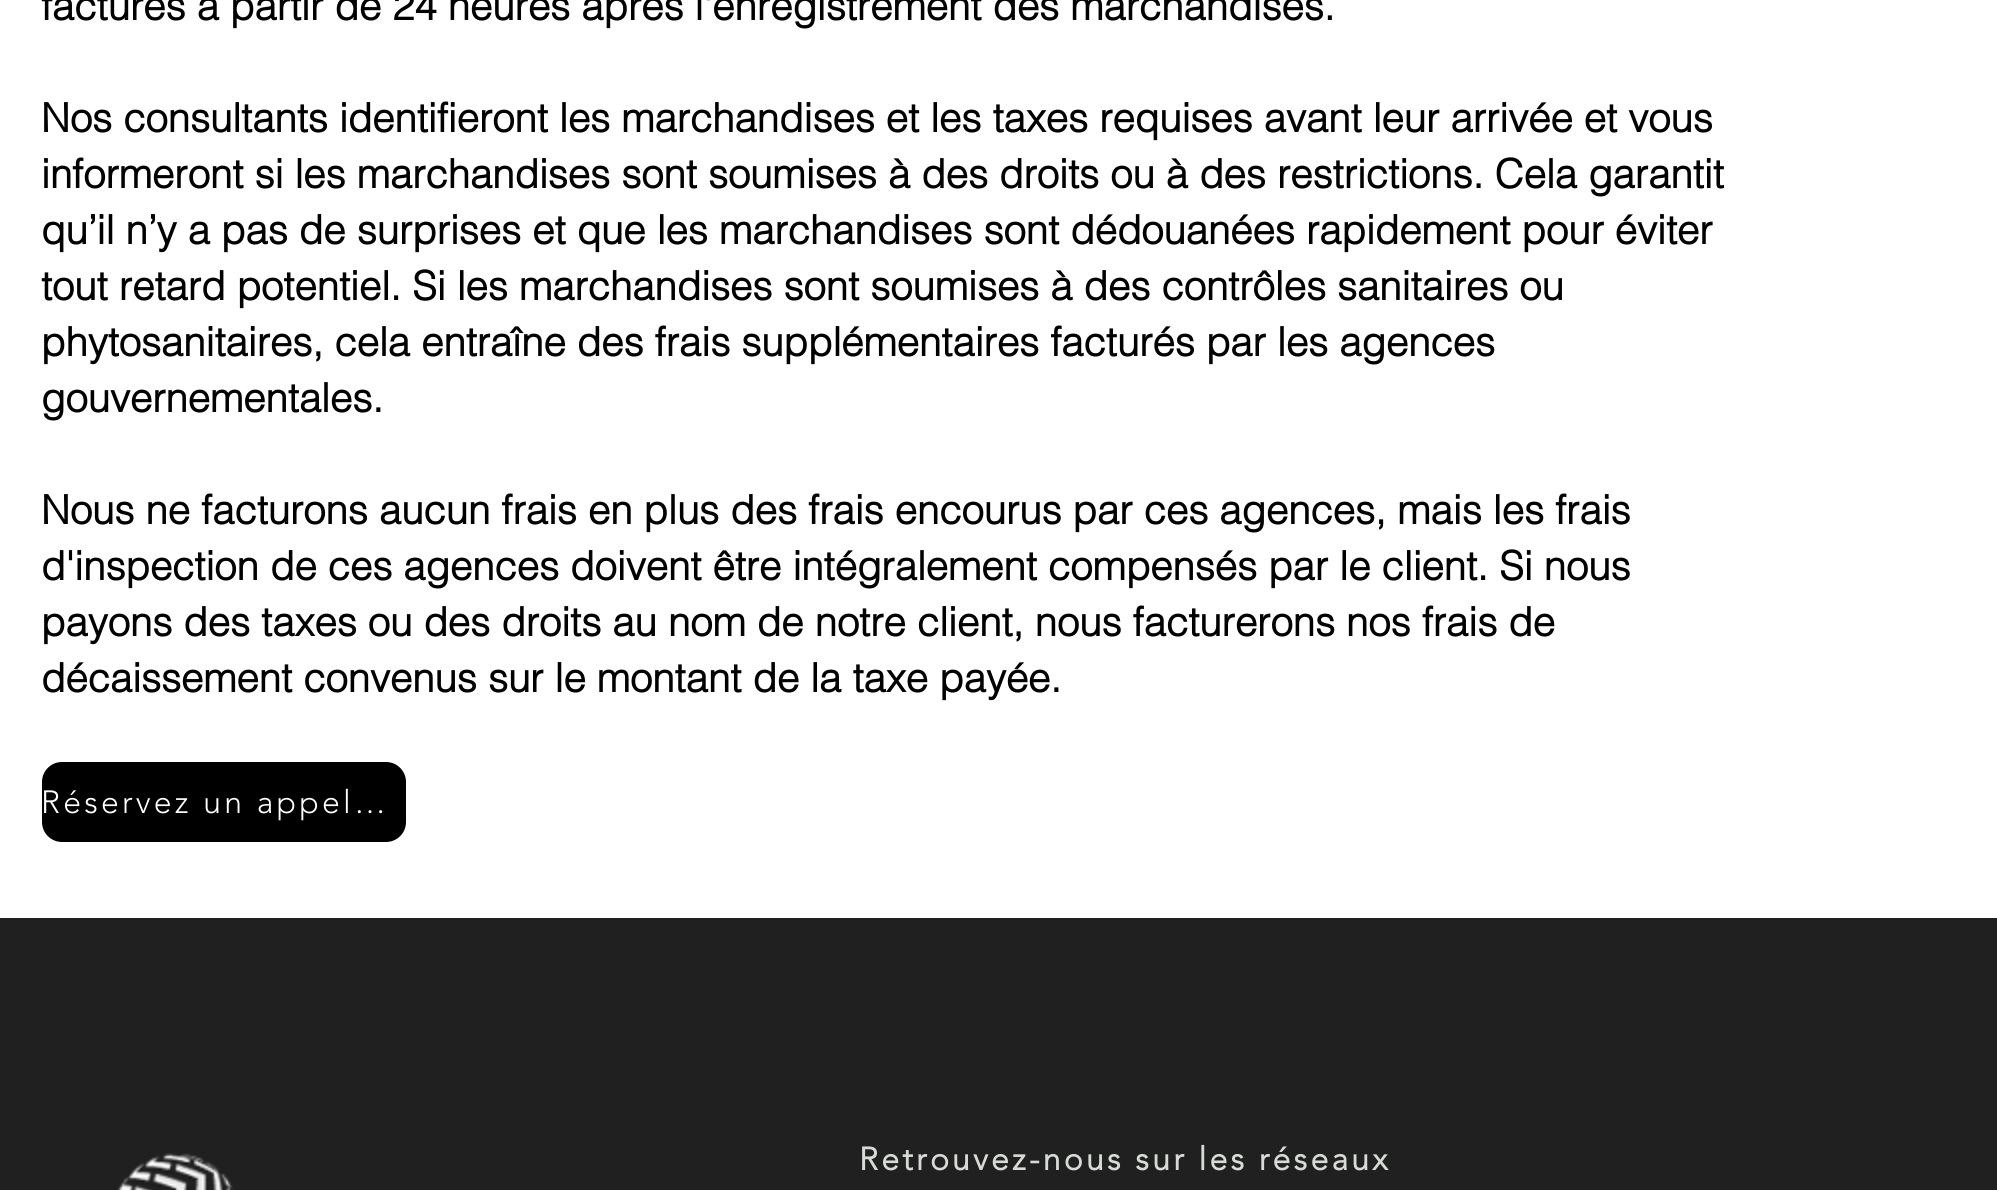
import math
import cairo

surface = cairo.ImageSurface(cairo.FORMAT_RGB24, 1997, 1190)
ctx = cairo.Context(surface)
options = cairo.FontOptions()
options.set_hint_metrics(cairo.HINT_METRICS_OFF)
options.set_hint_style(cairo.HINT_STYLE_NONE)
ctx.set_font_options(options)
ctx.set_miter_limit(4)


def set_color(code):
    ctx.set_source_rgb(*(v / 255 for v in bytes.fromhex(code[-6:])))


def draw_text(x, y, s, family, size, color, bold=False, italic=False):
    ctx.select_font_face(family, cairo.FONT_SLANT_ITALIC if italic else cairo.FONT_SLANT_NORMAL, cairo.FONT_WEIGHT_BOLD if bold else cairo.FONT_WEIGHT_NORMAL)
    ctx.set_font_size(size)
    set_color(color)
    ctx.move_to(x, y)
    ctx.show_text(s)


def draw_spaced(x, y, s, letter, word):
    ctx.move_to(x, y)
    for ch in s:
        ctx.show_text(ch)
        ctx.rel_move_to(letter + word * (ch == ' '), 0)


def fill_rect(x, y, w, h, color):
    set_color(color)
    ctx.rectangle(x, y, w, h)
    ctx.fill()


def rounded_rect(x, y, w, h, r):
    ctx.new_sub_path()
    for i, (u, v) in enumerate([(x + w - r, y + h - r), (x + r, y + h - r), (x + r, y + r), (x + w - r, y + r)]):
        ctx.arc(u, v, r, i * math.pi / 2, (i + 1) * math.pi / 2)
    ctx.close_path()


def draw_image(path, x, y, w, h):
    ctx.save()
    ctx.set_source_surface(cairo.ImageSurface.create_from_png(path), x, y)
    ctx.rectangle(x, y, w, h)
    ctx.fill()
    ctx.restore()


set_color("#ffffff")
ctx.paint()
draw_text(41, 20, "facturés à partir de 24 heures après l'enregistrement des marchandises.", "helvetica", 40, "#000000", bold=True)
draw_text(41, 132, "Nos consultants identifieront les marchandises et les taxes requises avant leur arrivée et vous", "helvetica", 40, "#000000", bold=True)
draw_text(41, 188, "informeront si les marchandises sont soumises à des droits ou à des restrictions. Cela garantit", "helvetica", 40, "#000000", bold=True)
draw_text(41, 244, "qu’il n’y a pas de surprises et que les marchandises sont dédouanées rapidement pour éviter", "helvetica", 40, "#000000", bold=True)
draw_text(41, 300, "tout retard potentiel. Si les marchandises sont soumises à des contrôles sanitaires ou", "helvetica", 40, "#000000", bold=True)
draw_text(41, 356, "phytosanitaires, cela entraîne des frais supplémentaires facturés par les agences", "helvetica", 40, "#000000", bold=True)
draw_text(41, 412, "gouvernementales.", "helvetica", 40, "#000000", bold=True)
draw_text(41, 524, "Nous ne facturons aucun frais en plus des frais encourus par ces agences, mais les frais", "helvetica", 40, "#000000", bold=True)
draw_text(41, 580, "d'inspection de ces agences doivent être intégralement compensés par le client. Si nous", "helvetica", 40, "#000000", bold=True)
draw_text(41, 636, "payons des taxes ou des droits au nom de notre client, nous facturerons nos frais de", "helvetica", 40, "#000000", bold=True)
draw_text(41, 692, "décaissement convenus sur le montant de la taxe payée.", "helvetica", 40, "#000000", bold=True)
rounded_rect(42, 762, 364, 80, 20)
ctx.fill()
ctx.select_font_face("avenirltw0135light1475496 Light")
ctx.set_font_size(32)
set_color("#ffffff")
draw_spaced(41, 813, "Réservez un appel…", 3.2, 0)
fill_rect(0, 918, 1997, 272, "#202020")
draw_image("assets/img1.png", 117, 1153, 118, 37)
ctx.select_font_face("avenirltw0135light1475496", cairo.FONT_SLANT_NORMAL, cairo.FONT_WEIGHT_BOLD)
set_color("#d7dbd6")
draw_spaced(859, 1170, "Retrouvez-nous sur les réseaux", 3.2, 0)
surface.write_to_png("output.png")
